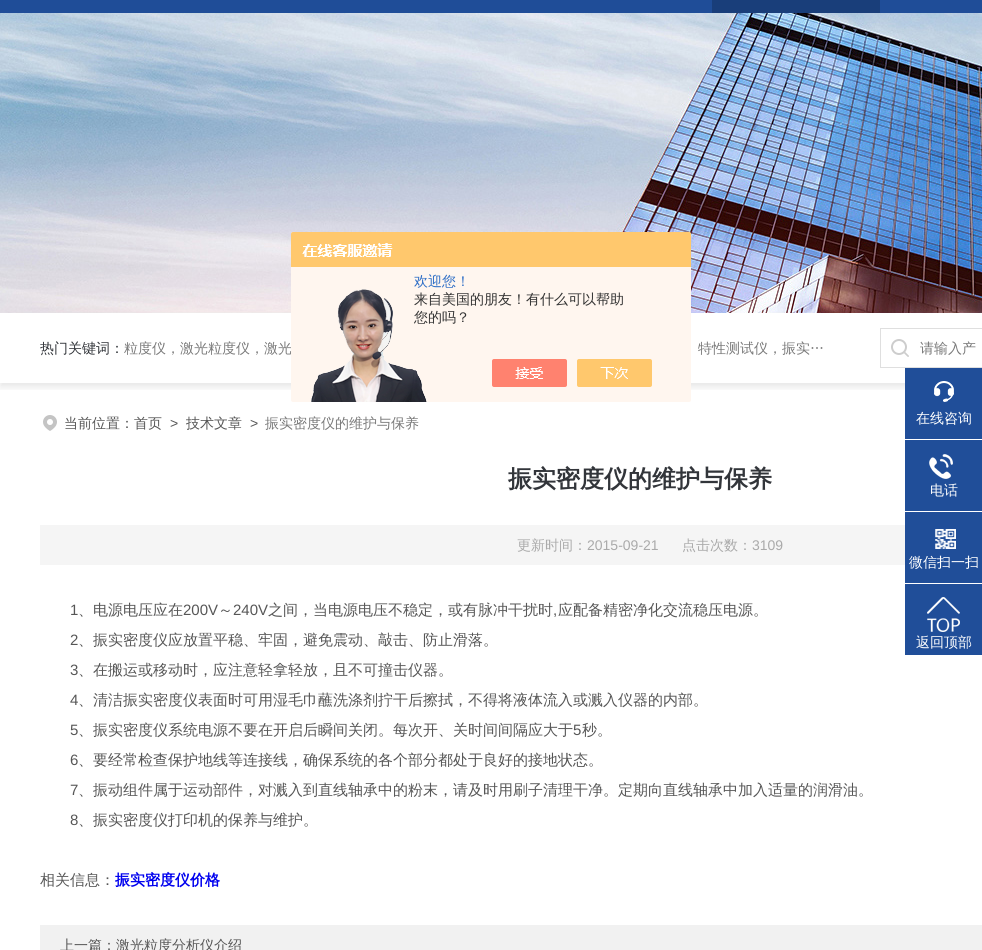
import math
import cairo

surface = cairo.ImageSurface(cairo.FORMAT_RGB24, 982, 950)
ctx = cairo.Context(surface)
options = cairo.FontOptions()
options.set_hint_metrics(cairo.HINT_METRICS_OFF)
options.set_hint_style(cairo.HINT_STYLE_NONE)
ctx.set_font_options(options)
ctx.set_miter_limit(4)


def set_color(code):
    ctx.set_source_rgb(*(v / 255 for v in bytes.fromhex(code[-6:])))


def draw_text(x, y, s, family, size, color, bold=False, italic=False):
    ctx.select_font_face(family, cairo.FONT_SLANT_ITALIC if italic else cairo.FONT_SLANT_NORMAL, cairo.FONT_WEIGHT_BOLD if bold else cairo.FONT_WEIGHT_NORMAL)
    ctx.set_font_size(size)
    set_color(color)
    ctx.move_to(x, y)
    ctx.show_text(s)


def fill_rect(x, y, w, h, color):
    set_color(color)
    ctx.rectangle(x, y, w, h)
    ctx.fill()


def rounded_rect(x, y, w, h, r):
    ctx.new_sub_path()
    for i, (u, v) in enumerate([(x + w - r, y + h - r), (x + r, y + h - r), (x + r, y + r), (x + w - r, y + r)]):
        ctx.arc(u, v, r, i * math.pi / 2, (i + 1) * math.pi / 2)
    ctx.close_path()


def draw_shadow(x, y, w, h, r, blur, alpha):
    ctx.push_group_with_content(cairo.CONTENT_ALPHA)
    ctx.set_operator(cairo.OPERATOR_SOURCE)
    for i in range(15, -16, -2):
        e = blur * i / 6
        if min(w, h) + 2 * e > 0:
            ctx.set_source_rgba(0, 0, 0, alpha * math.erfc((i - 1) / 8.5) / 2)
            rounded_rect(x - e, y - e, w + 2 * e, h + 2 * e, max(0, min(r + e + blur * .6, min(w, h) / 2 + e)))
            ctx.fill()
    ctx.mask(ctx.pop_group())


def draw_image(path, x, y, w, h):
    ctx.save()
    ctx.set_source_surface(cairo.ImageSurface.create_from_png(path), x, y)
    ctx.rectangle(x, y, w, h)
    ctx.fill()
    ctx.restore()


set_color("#ffffff")
ctx.paint()
fill_rect(0, 0, 982, 13, "#1f4d98")
fill_rect(712, 0, 168, 13, "#193e7a")
draw_image("assets/img1.png", 0, 13, 982, 300)
ctx.save()
ctx.rectangle(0, 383, 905, 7)
ctx.clip()
set_color("#000000")
draw_shadow(0, 317, 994, 70, 0, 4, 0.1)
ctx.restore()
draw_text(124, 353, "粒度仪，激光粒度仪，激光", "WenQuanYi Zen Hei Medium", 14, "#797979")
draw_image("assets/img2.png", 291, 232, 400, 170)
draw_text(414, 286, "欢迎您！", "WenQuanYi Zen Hei Medium", 14, "#2e6ec6")
draw_text(414, 304, "来自美国的朋友！有什么可以帮助", "WenQuanYi Zen Hei Medium", 14, "#333333")
draw_text(414, 322, "您的吗？", "WenQuanYi Zen Hei Medium", 14, "#333333")
draw_text(40, 353, "热门关键词：", "WenQuanYi Zen Hei Medium", 14, "#32353a")
draw_text(698, 353, "特性测试仪，振实…", "WenQuanYi Zen Hei Medium", 14, "#797979")
draw_image("assets/img3.png", 891, 339, 18, 18)
fill_rect(880, 328, 102, 1, "#dfdfdf")
fill_rect(880, 367, 102, 1, "#dfdfdf")
fill_rect(880, 328, 1, 40, "#dfdfdf")
draw_text(920, 353, "请输入产", "WenQuanYi Zen Hei Medium", 14, "#797979")
draw_image("assets/img4.png", 43, 415, 14, 16)
draw_text(64, 428, "当前位置：首页", "WenQuanYi Zen Hei Medium", 14, "#565656")
draw_text(170, 428, ">", "Liberation Sans", 14, "#565656")
draw_text(186, 428, "技术文章", "WenQuanYi Zen Hei Medium", 14, "#565656")
draw_text(250, 428, ">", "Liberation Sans", 14, "#565656")
draw_text(265, 428, "振实密度仪的维护与保养", "WenQuanYi Zen Hei Medium", 14, "#797979")
fill_rect(905, 368, 77, 71, "#204e99")
draw_image("assets/img5.png", 934, 381, 20, 21)
draw_text(916, 423, "在线咨询", "WenQuanYi Zen Hei Medium", 14, "#ffffff")
fill_rect(905, 440, 77, 71, "#204e99")
draw_image("assets/img6.png", 929, 454, 24, 25)
draw_text(930, 495, "电话", "WenQuanYi Zen Hei Medium", 14, "#ffffff")
fill_rect(905, 512, 77, 71, "#204e99")
draw_image("assets/img7.png", 935, 529, 21, 20)
draw_text(909, 567, "微信扫一扫", "WenQuanYi Zen Hei Medium", 14, "#ffffff")
fill_rect(905, 584, 77, 71, "#204e99")
draw_image("assets/img8.png", 927, 597, 33, 35)
draw_text(916, 647, "返回顶部", "WenQuanYi Zen Hei Medium", 14, "#ffffff")
draw_text(508, 487, "振实密度仪的维护与保养", "WenQuanYi Zen Hei", 24, "#32353a", bold=True)
fill_rect(40, 525, 865, 40, "#f5f5f5")
draw_text(517, 550, "更新时间：", "WenQuanYi Zen Hei Medium", 14, "#aaaaaa")
draw_text(587, 550, "2015-09-21", "Liberation Sans", 14, "#aaaaaa")
draw_text(682, 550, "点击次数：", "WenQuanYi Zen Hei Medium", 14, "#aaaaaa")
draw_text(752, 550, "3109", "Liberation Sans", 14, "#aaaaaa")
draw_text(70, 615, "1", "Liberation Sans", 15, "#565656")
draw_text(78, 615, "、电源电压应在", "WenQuanYi Zen Hei Medium", 15, "#565656")
draw_text(183, 615, "200V", "Liberation Sans", 15, "#565656")
draw_text(218, 615, "～", "WenQuanYi Zen Hei Medium", 15, "#565656")
draw_text(233, 615, "240V", "Liberation Sans", 15, "#565656")
draw_text(268, 615, "之间，当电源电压不稳定，或有脉冲干扰时", "WenQuanYi Zen Hei Medium", 15, "#565656")
draw_text(558, 615, "应配备精密净化交流稳压电源。", "WenQuanYi Zen Hei Medium", 15, "#565656")
draw_text(553, 615, ",", "Liberation Sans", 15, "#565656")
draw_text(70, 645, "2", "Liberation Sans", 15, "#565656")
draw_text(78, 645, "、振实密度仪应放置平稳、牢固，避免震动、敲击、防止滑落。", "WenQuanYi Zen Hei Medium", 15, "#565656")
draw_text(70, 675, "3", "Liberation Sans", 15, "#565656")
draw_text(78, 675, "、在搬运或移动时，应注意轻拿轻放，且不可撞击仪器。", "WenQuanYi Zen Hei Medium", 15, "#565656")
draw_text(70, 705, "4", "Liberation Sans", 15, "#565656")
draw_text(78, 705, "、清洁振实密度仪表面时可用湿毛巾蘸洗涤剂拧干后擦拭，不得将液体流入或溅入仪器的内部。", "WenQuanYi Zen Hei Medium", 15, "#565656")
draw_text(70, 735, "5", "Liberation Sans", 15, "#565656")
draw_text(78, 735, "、振实密度仪系统电源不要在开启后瞬间关闭。每次开、关时间间隔应大于", "WenQuanYi Zen Hei Medium", 15, "#565656")
draw_text(573, 735, "5", "Liberation Sans", 15, "#565656")
draw_text(582, 735, "秒。", "WenQuanYi Zen Hei Medium", 15, "#565656")
draw_text(70, 765, "6", "Liberation Sans", 15, "#565656")
draw_text(78, 765, "、要经常检查保护地线等连接线，确保系统的各个部分都处于良好的接地状态。", "WenQuanYi Zen Hei Medium", 15, "#565656")
draw_text(70, 795, "7", "Liberation Sans", 15, "#565656")
draw_text(78, 795, "、振动组件属于运动部件，对溅入到直线轴承中的粉末，请及时用刷子清理干净。定期向直线轴承中加入适量的润滑油。", "WenQuanYi Zen Hei Medium", 15, "#565656")
draw_text(70, 825, "8", "Liberation Sans", 15, "#565656")
draw_text(78, 825, "、振实密度仪打印机的保养与维护。", "WenQuanYi Zen Hei Medium", 15, "#565656")
draw_text(40, 885, "相关信息：", "WenQuanYi Zen Hei Medium", 15, "#565656")
draw_text(115, 885, "振实密度仪价格", "WenQuanYi Zen Hei", 15, "#0000ee", bold=True)
fill_rect(40, 925, 942, 25, "#f1f1f1")
draw_text(60, 950, "上一篇：激光粒度分析仪介绍", "WenQuanYi Zen Hei Medium", 14, "#565656")
surface.write_to_png("output.png")
